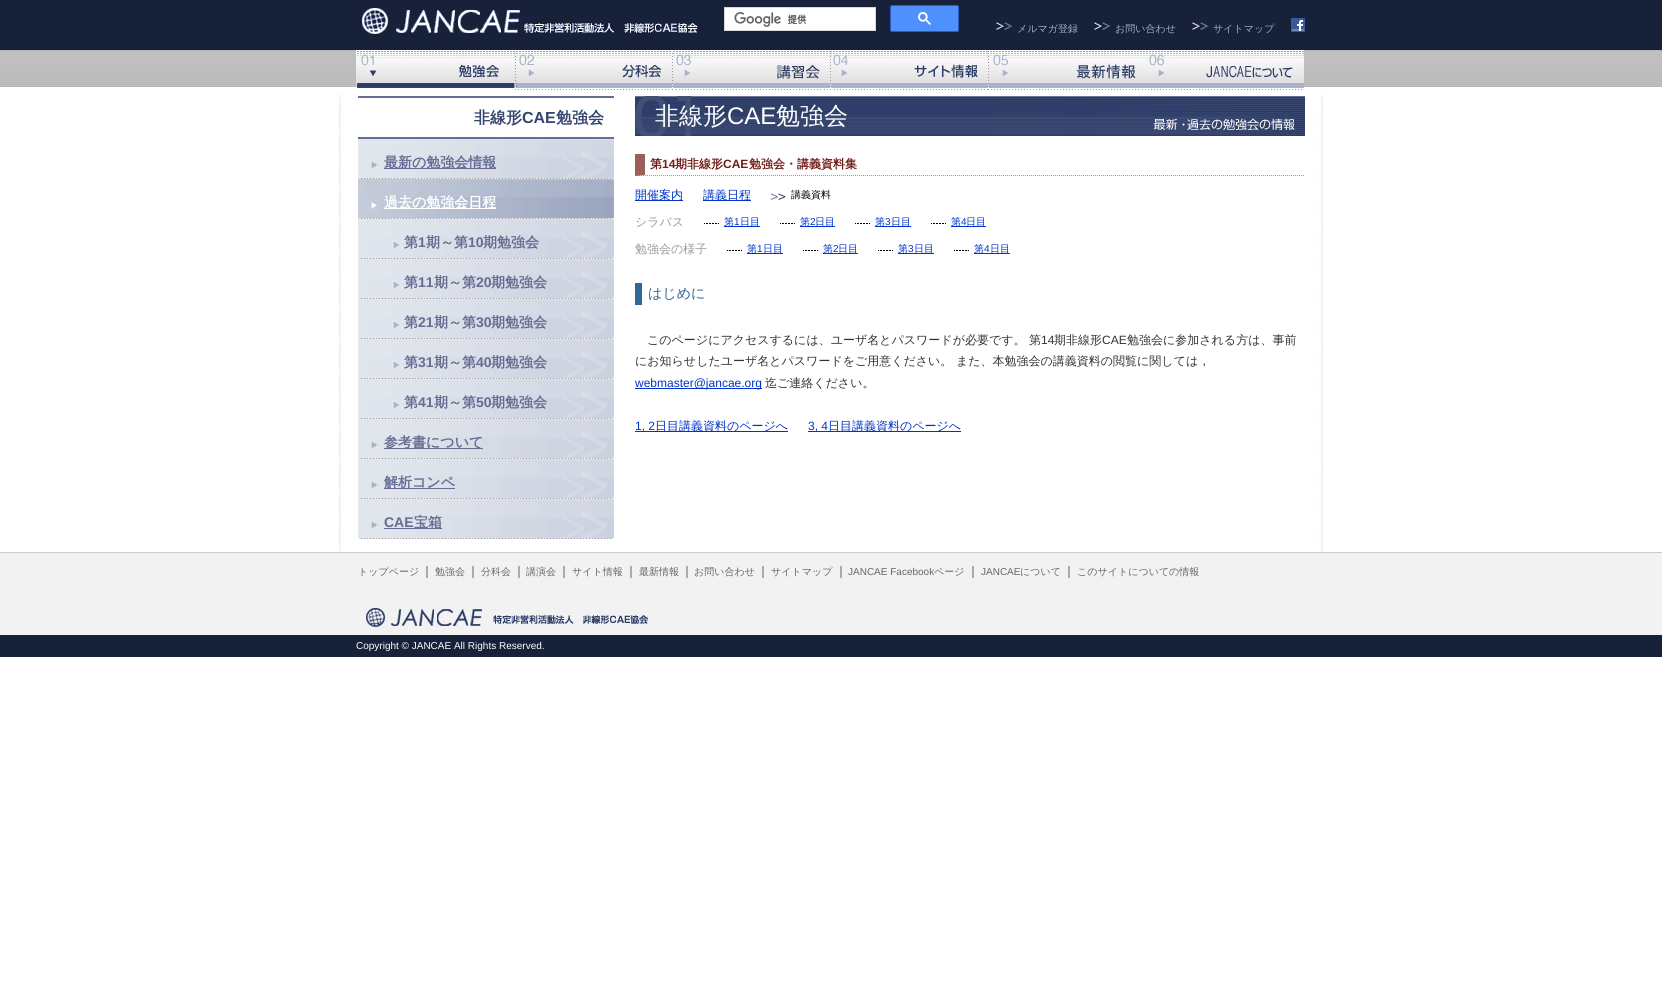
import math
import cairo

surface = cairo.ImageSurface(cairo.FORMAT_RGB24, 1662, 1002)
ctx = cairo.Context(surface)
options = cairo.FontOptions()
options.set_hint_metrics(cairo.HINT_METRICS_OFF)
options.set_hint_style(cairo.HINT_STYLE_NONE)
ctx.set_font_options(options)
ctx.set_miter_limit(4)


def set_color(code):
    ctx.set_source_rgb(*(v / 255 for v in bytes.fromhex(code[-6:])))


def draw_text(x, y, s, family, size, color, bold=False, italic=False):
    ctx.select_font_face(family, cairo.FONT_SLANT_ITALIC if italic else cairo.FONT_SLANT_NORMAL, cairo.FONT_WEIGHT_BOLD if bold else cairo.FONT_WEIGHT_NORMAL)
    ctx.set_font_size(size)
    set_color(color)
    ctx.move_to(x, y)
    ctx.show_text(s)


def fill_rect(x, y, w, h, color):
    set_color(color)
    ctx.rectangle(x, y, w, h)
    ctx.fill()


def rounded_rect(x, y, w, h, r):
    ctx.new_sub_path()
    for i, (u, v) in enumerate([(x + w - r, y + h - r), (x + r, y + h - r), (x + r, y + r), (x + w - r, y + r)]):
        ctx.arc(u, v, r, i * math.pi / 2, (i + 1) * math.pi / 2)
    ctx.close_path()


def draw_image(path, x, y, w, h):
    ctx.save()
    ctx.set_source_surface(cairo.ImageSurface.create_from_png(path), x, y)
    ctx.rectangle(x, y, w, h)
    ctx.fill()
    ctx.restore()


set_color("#ffffff")
ctx.paint()
fill_rect(0, 0, 1662, 50, "#17213a")
draw_image("assets/img1.png", 362, 8, 336, 26)
set_color("#ffffff")
ctx.rectangle(724.5, 7.5, 151, 23)
ctx.fill_preserve()
set_color("#d9d9d9")
ctx.set_line_width(1)
ctx.stroke()
draw_image("assets/img2.png", 734, 12, 73, 15)
set_color("#4d90fe")
rounded_rect(890.5, 5.5, 68, 26, 1.5)
ctx.fill_preserve()
set_color("#2f5bb7")
ctx.stroke()
draw_image("assets/img3.png", 918, 12, 13, 13)
draw_image("assets/img4.png", 996, 22, 16, 8)
draw_text(1017, 32, "メルマガ登録", "WenQuanYi Zen Hei Medium", 10, "#a1abc5")
draw_image("assets/img4.png", 1094, 22, 16, 8)
draw_text(1115, 32, "お問い合わせ", "WenQuanYi Zen Hei Medium", 10, "#a1abc5")
draw_image("assets/img4.png", 1192, 22, 16, 8)
draw_text(1213, 32, "サイトマップ", "WenQuanYi Zen Hei Medium", 10, "#a1abc5")
draw_image("assets/img5.png", 1291, 18, 14, 14)
draw_image("assets/img6.png", 0, 50, 1662, 37)
draw_image("assets/img7.png", 356, 50, 158, 38)
draw_image("assets/img8.png", 514, 50, 158, 40)
draw_image("assets/img9.png", 672, 50, 158, 40)
draw_image("assets/img10.png", 830, 50, 158, 40)
draw_image("assets/img11.png", 988, 50, 158, 40)
draw_image("assets/img12.png", 1146, 50, 158, 40)
draw_image("assets/img13.png", 338, 95, 986, 457)
fill_rect(358, 96, 256, 2, "#656d93")
fill_rect(358, 137, 256, 2, "#656d93")
draw_text(474, 123, "非線形", "WenQuanYi Zen Hei", 16, "#36456e", bold=True)
draw_text(522, 123, "CAE", "Liberation Sans", 16, "#36456e", bold=True)
draw_text(556, 123, "勉強会", "WenQuanYi Zen Hei", 16, "#36456e", bold=True)
fill_rect(358, 139, 3, 40, "#e2e6ed")
draw_image("assets/img14.png", 361, 139, 253, 40)
fill_rect(384, 168, 112, 1, "#656d93")
draw_text(384, 167, "最新の勉強会情報", "WenQuanYi Zen Hei", 14, "#656d93", bold=True)
draw_image("assets/img15.png", 358, 179, 256, 40)
fill_rect(384, 208, 112, 1, "#ffffff")
draw_text(384, 207, "過去の勉強会日程", "WenQuanYi Zen Hei", 14, "#ffffff", bold=True)
fill_rect(358, 219, 3, 320, "#e2e6ed")
draw_image("assets/img16.png", 361, 219, 253, 40)
draw_text(404, 247, "第", "WenQuanYi Zen Hei", 14, "#656d93", bold=True)
draw_text(418, 247, "1", "Liberation Sans", 14, "#656d93", bold=True)
draw_text(426, 247, "期～第", "WenQuanYi Zen Hei", 14, "#656d93", bold=True)
draw_text(468, 247, "10", "Liberation Sans", 14, "#656d93", bold=True)
draw_text(483, 247, "期勉強会", "WenQuanYi Zen Hei", 14, "#656d93", bold=True)
draw_image("assets/img16.png", 361, 259, 253, 40)
draw_text(404, 287, "第", "WenQuanYi Zen Hei", 14, "#656d93", bold=True)
draw_text(418, 287, "11", "Liberation Sans", 14, "#656d93", bold=True)
draw_text(434, 287, "期～第", "WenQuanYi Zen Hei", 14, "#656d93", bold=True)
draw_text(476, 287, "20", "Liberation Sans", 14, "#656d93", bold=True)
draw_text(491, 287, "期勉強会", "WenQuanYi Zen Hei", 14, "#656d93", bold=True)
draw_image("assets/img16.png", 361, 299, 253, 40)
draw_text(404, 327, "第", "WenQuanYi Zen Hei", 14, "#656d93", bold=True)
draw_text(418, 327, "21", "Liberation Sans", 14, "#656d93", bold=True)
draw_text(434, 327, "期～第", "WenQuanYi Zen Hei", 14, "#656d93", bold=True)
draw_text(476, 327, "30", "Liberation Sans", 14, "#656d93", bold=True)
draw_text(491, 327, "期勉強会", "WenQuanYi Zen Hei", 14, "#656d93", bold=True)
draw_image("assets/img16.png", 361, 339, 253, 40)
draw_text(404, 367, "第", "WenQuanYi Zen Hei", 14, "#656d93", bold=True)
draw_text(418, 367, "31", "Liberation Sans", 14, "#656d93", bold=True)
draw_text(434, 367, "期～第", "WenQuanYi Zen Hei", 14, "#656d93", bold=True)
draw_text(476, 367, "40", "Liberation Sans", 14, "#656d93", bold=True)
draw_text(491, 367, "期勉強会", "WenQuanYi Zen Hei", 14, "#656d93", bold=True)
draw_image("assets/img16.png", 361, 379, 253, 40)
draw_text(404, 407, "第", "WenQuanYi Zen Hei", 14, "#656d93", bold=True)
draw_text(418, 407, "41", "Liberation Sans", 14, "#656d93", bold=True)
draw_text(434, 407, "期～第", "WenQuanYi Zen Hei", 14, "#656d93", bold=True)
draw_text(476, 407, "50", "Liberation Sans", 14, "#656d93", bold=True)
draw_text(491, 407, "期勉強会", "WenQuanYi Zen Hei", 14, "#656d93", bold=True)
draw_image("assets/img14.png", 361, 419, 253, 40)
fill_rect(384, 448, 99, 1, "#656d93")
draw_text(384, 447, "参考書について", "WenQuanYi Zen Hei", 14, "#656d93", bold=True)
draw_image("assets/img14.png", 361, 459, 253, 40)
fill_rect(384, 488, 71, 1, "#656d93")
draw_text(384, 487, "解析コンペ", "WenQuanYi Zen Hei", 14, "#656d93", bold=True)
draw_image("assets/img14.png", 361, 499, 253, 40)
draw_text(384, 527, "CAE", "Liberation Sans", 14, "#656d93", bold=True)
fill_rect(384, 528, 58, 1, "#656d93")
draw_text(414, 527, "宝箱", "WenQuanYi Zen Hei", 14, "#656d93", bold=True)
draw_image("assets/img17.png", 635, 96, 670, 40)
draw_text(655, 124, "非線形", "WenQuanYi Zen Hei Medium", 24, "#ffffff")
draw_text(727, 124, "CAE", "Liberation Sans", 24, "#ffffff")
draw_text(776, 124, "勉強会", "WenQuanYi Zen Hei Medium", 24, "#ffffff")
ctx.new_path()
ctx.move_to(635, 175.5)
ctx.line_to(1305, 175.5)
set_color("#999999")
ctx.set_dash([1, 1])
ctx.stroke()
set_color("#9c605c")
ctx.new_path()
ctx.move_to(635, 176)
ctx.line_to(635, 154)
ctx.line_to(645, 154)
ctx.line_to(645, 175)
ctx.close_path()
ctx.fill()
draw_text(650, 168, "第", "WenQuanYi Zen Hei", 12, "#721d17", bold=True)
draw_text(662, 168, "14", "Liberation Sans", 12, "#721d17", bold=True)
draw_text(675, 168, "期非線形", "WenQuanYi Zen Hei", 12, "#721d17", bold=True)
draw_text(723, 168, "CAE", "Liberation Sans", 12, "#721d17", bold=True)
draw_text(749, 168, "勉強会・講義資料集", "WenQuanYi Zen Hei", 12, "#721d17", bold=True)
fill_rect(635, 200, 48, 1, "#0033cc")
draw_text(635, 199, "開催案内", "WenQuanYi Zen Hei Medium", 12, "#0033cc")
fill_rect(703, 200, 48, 1, "#0033cc")
draw_text(703, 199, "講義日程", "WenQuanYi Zen Hei Medium", 12, "#0033cc")
draw_image("assets/img18.png", 771, 193, 15, 7)
draw_text(791, 198, "講義資料", "WenQuanYi Zen Hei Medium", 10, "#000000")
draw_text(635, 226, "シラバス", "WenQuanYi Zen Hei Medium", 12, "#999999")
draw_image("assets/img19.png", 704, 223, 15, 1)
fill_rect(724, 226, 36, 1, "#0033cc")
draw_text(724, 225, "第", "WenQuanYi Zen Hei Medium", 10, "#0033cc")
draw_text(734, 225, "1", "Liberation Sans", 10, "#0033cc")
draw_text(740, 225, "日目", "WenQuanYi Zen Hei Medium", 10, "#0033cc")
draw_image("assets/img19.png", 780, 223, 15, 1)
fill_rect(800, 226, 35, 1, "#0033cc")
draw_text(800, 225, "第", "WenQuanYi Zen Hei Medium", 10, "#0033cc")
draw_text(810, 225, "2", "Liberation Sans", 10, "#0033cc")
draw_text(815, 225, "日目", "WenQuanYi Zen Hei Medium", 10, "#0033cc")
draw_image("assets/img19.png", 855, 223, 15, 1)
fill_rect(875, 226, 36, 1, "#0033cc")
draw_text(875, 225, "第", "WenQuanYi Zen Hei Medium", 10, "#0033cc")
draw_text(885, 225, "3", "Liberation Sans", 10, "#0033cc")
draw_text(891, 225, "日目", "WenQuanYi Zen Hei Medium", 10, "#0033cc")
draw_image("assets/img19.png", 931, 223, 15, 1)
fill_rect(951, 226, 35, 1, "#0033cc")
draw_text(951, 225, "第", "WenQuanYi Zen Hei Medium", 10, "#0033cc")
draw_text(961, 225, "4", "Liberation Sans", 10, "#0033cc")
draw_text(966, 225, "日目", "WenQuanYi Zen Hei Medium", 10, "#0033cc")
draw_text(635, 253, "勉強会の様子", "WenQuanYi Zen Hei Medium", 12, "#999999")
draw_image("assets/img19.png", 727, 250, 15, 1)
fill_rect(747, 253, 36, 1, "#0033cc")
draw_text(747, 252, "第", "WenQuanYi Zen Hei Medium", 10, "#0033cc")
draw_text(757, 252, "1", "Liberation Sans", 10, "#0033cc")
draw_text(763, 252, "日目", "WenQuanYi Zen Hei Medium", 10, "#0033cc")
draw_image("assets/img19.png", 803, 250, 15, 1)
fill_rect(823, 253, 35, 1, "#0033cc")
draw_text(823, 252, "第", "WenQuanYi Zen Hei Medium", 10, "#0033cc")
draw_text(833, 252, "2", "Liberation Sans", 10, "#0033cc")
draw_text(838, 252, "日目", "WenQuanYi Zen Hei Medium", 10, "#0033cc")
draw_image("assets/img19.png", 878, 250, 15, 1)
fill_rect(898, 253, 36, 1, "#0033cc")
draw_text(898, 252, "第", "WenQuanYi Zen Hei Medium", 10, "#0033cc")
draw_text(908, 252, "3", "Liberation Sans", 10, "#0033cc")
draw_text(914, 252, "日目", "WenQuanYi Zen Hei Medium", 10, "#0033cc")
draw_image("assets/img19.png", 954, 250, 15, 1)
fill_rect(974, 253, 36, 1, "#0033cc")
draw_text(974, 252, "第", "WenQuanYi Zen Hei Medium", 10, "#0033cc")
draw_text(984, 252, "4", "Liberation Sans", 10, "#0033cc")
draw_text(990, 252, "日目", "WenQuanYi Zen Hei Medium", 10, "#0033cc")
fill_rect(635, 283, 7, 22, "#336699")
draw_text(648, 298, "はじめに", "WenQuanYi Zen Hei Medium", 14, "#336699")
draw_text(647, 344, "このページにアクセスするには、ユーザ名とパスワードが必要です。 第", "WenQuanYi Zen Hei Medium", 12, "#333333")
draw_text(1041, 344, "14", "Liberation Sans", 12, "#333333")
draw_text(1054, 344, "期非線形", "WenQuanYi Zen Hei Medium", 12, "#333333")
draw_text(1102, 344, "CAE", "Liberation Sans", 12, "#333333")
draw_text(1127, 344, "勉強会に参加される方は、事前", "WenQuanYi Zen Hei Medium", 12, "#333333")
draw_text(635, 365, "にお知らせしたユーザ名とパスワードをご用意ください。 また、本勉強会の講義資料の閲覧に関しては，", "WenQuanYi Zen Hei Medium", 12, "#333333")
fill_rect(635, 388, 127, 1, "#0033cc")
draw_text(635, 387, "webmaster@jancae.org", "Liberation Sans", 12, "#0033cc")
draw_text(765, 387, "迄ご連絡ください。", "WenQuanYi Zen Hei Medium", 12, "#333333")
fill_rect(635, 431, 153, 1, "#0033cc")
draw_text(635, 430, "1, 2", "Liberation Sans", 12, "#0033cc")
draw_text(655, 430, "日目講義資料のページへ", "WenQuanYi Zen Hei Medium", 12, "#0033cc")
fill_rect(808, 431, 153, 1, "#0033cc")
draw_text(808, 430, "3, 4", "Liberation Sans", 12, "#0033cc")
draw_text(828, 430, "日目講義資料のページへ", "WenQuanYi Zen Hei Medium", 12, "#0033cc")
fill_rect(0, 553, 1662, 82, "#f2f2f2")
fill_rect(0, 552, 1662, 1, "#cccccc")
draw_text(358, 575, "トップページ", "WenQuanYi Zen Hei Medium", 10, "#666666")
draw_text(421, 575, "｜", "WenQuanYi Zen Hei Medium", 12, "#333333")
draw_text(435, 575, "勉強会", "WenQuanYi Zen Hei Medium", 10, "#666666")
draw_text(467, 575, "｜", "WenQuanYi Zen Hei Medium", 12, "#333333")
draw_text(481, 575, "分科会", "WenQuanYi Zen Hei Medium", 10, "#666666")
draw_text(513, 575, "｜", "WenQuanYi Zen Hei Medium", 12, "#333333")
draw_text(526, 575, "講演会", "WenQuanYi Zen Hei Medium", 10, "#666666")
draw_text(558, 575, "｜", "WenQuanYi Zen Hei Medium", 12, "#333333")
draw_text(572, 575, "サイト情報", "WenQuanYi Zen Hei Medium", 10, "#666666")
draw_text(625, 575, "｜", "WenQuanYi Zen Hei Medium", 12, "#333333")
draw_text(639, 575, "最新情報", "WenQuanYi Zen Hei Medium", 10, "#666666")
draw_text(681, 575, "｜", "WenQuanYi Zen Hei Medium", 12, "#333333")
draw_text(694, 575, "お問い合わせ", "WenQuanYi Zen Hei Medium", 10, "#666666")
draw_text(757, 575, "｜", "WenQuanYi Zen Hei Medium", 12, "#333333")
draw_text(771, 575, "サイトマップ", "WenQuanYi Zen Hei Medium", 10, "#666666")
draw_text(835, 575, "｜", "WenQuanYi Zen Hei Medium", 12, "#333333")
draw_text(848, 575, "JANCAE Facebook", "Liberation Sans", 10, "#666666")
draw_text(934, 575, "ページ", "WenQuanYi Zen Hei Medium", 10, "#666666")
draw_text(967, 575, "｜", "WenQuanYi Zen Hei Medium", 12, "#333333")
draw_text(981, 575, "JANCAE", "Liberation Sans", 10, "#666666")
draw_text(1020, 575, "について", "WenQuanYi Zen Hei Medium", 10, "#666666")
draw_text(1063, 575, "｜", "WenQuanYi Zen Hei Medium", 12, "#333333")
draw_text(1077, 575, "このサイトについての情報", "WenQuanYi Zen Hei Medium", 10, "#666666")
draw_image("assets/img20.png", 366, 608, 282, 19)
fill_rect(0, 635, 1662, 22, "#17213a")
draw_text(356, 649, "Copyright © JANCAE All Rights Reserved.", "Liberation Sans", 10, "#ffffff")
surface.write_to_png("output.png")
